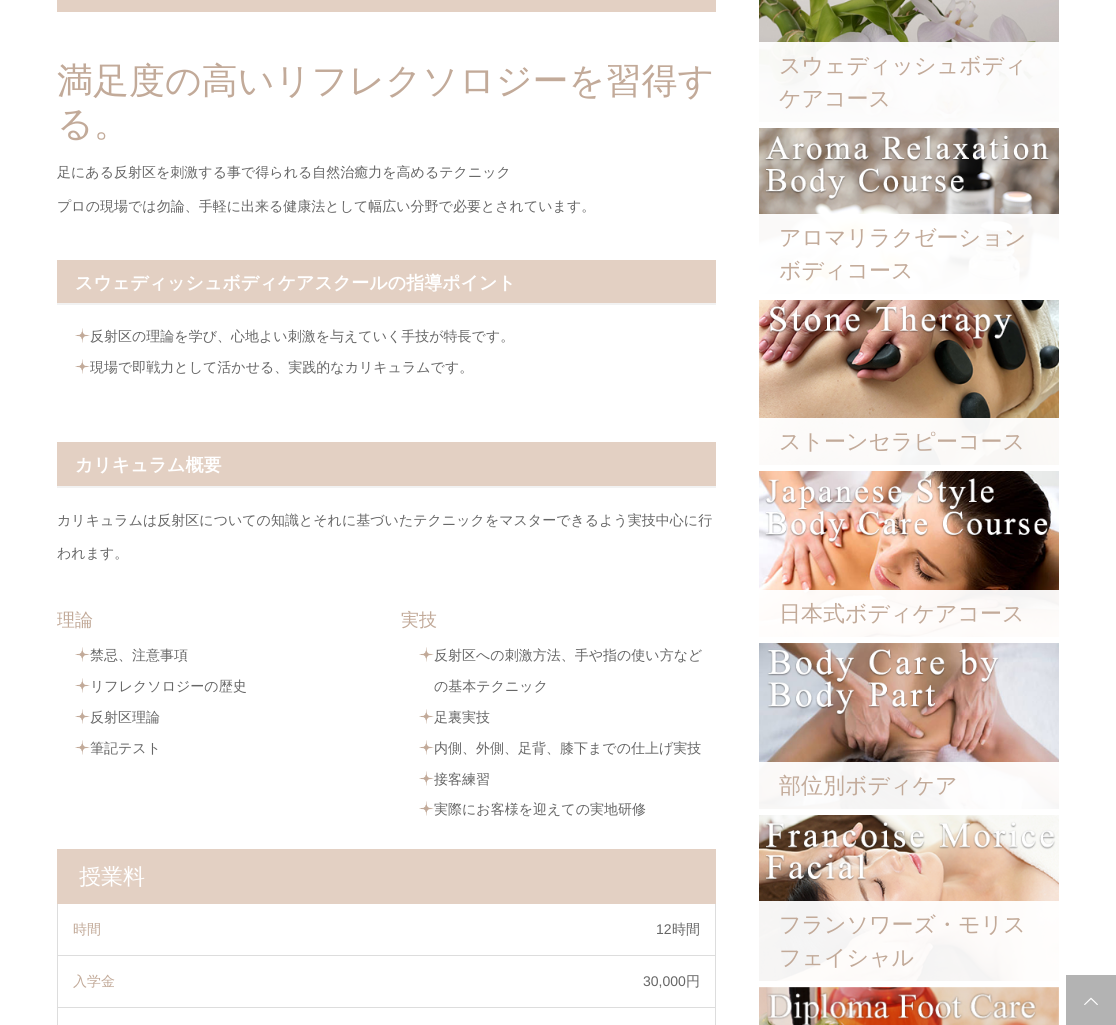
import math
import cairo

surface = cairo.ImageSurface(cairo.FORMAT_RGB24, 1116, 1025)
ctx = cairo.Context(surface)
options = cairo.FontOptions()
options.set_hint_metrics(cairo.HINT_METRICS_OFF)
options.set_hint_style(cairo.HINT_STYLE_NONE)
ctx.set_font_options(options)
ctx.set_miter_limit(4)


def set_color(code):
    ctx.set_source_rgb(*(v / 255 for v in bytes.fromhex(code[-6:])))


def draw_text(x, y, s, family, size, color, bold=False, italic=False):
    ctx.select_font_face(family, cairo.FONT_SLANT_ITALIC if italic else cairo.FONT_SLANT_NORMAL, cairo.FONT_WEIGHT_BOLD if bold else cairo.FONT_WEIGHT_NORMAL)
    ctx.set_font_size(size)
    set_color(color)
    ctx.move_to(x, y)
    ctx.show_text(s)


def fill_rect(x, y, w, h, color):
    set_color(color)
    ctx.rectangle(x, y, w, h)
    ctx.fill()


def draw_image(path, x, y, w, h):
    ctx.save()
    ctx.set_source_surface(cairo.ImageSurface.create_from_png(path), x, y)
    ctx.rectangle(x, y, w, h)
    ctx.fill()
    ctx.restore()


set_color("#ffffff")
ctx.paint()
fill_rect(57, 0, 659, 12, "#e3d0c3")
draw_text(57, 93, "満足度の高いリフレクソロジーを習得す", "WenQuanYi Zen Hei Medium", 36, "#c2aa99")
draw_text(57, 136, "る。", "WenQuanYi Zen Hei Medium", 36, "#c2aa99")
draw_text(57, 177, "足にある反射区を刺激する事で得られる自然治癒力を高めるテクニック", "WenQuanYi Zen Hei Medium", 14, "#666666")
draw_text(57, 211, "プロの現場では勿論、手軽に出来る健康法として幅広い分野で必要とされています。", "WenQuanYi Zen Hei Medium", 14, "#666666")
fill_rect(57, 303, 659, 2, "#f2f2f2")
fill_rect(57, 260, 659, 43, "#e3d0c3")
draw_text(75, 289, "スウェディッシュボディケアスクールの指導ポイント", "WenQuanYi Zen Hei", 18, "#ffffff", bold=True)
draw_image("assets/img1.png", 75, 328, 15, 15)
draw_text(90, 341, "反射区の理論を学び、心地よい刺激を与えていく手技が特長です。", "WenQuanYi Zen Hei Medium", 14, "#666666")
draw_image("assets/img1.png", 75, 359, 15, 15)
draw_text(90, 372, "現場で即戦力として活かせる、実践的なカリキュラムです。", "WenQuanYi Zen Hei Medium", 14, "#666666")
fill_rect(57, 486, 659, 2, "#f2f2f2")
fill_rect(57, 442, 659, 44, "#e3d0c3")
draw_text(75, 471, "カリキュラム概要", "WenQuanYi Zen Hei", 18, "#ffffff", bold=True)
draw_text(57, 525, "カリキュラムは反射区についての知識とそれに基づいたテクニックをマスターできるよう実技中心に行", "WenQuanYi Zen Hei Medium", 14, "#666666")
draw_text(57, 558, "われます。", "WenQuanYi Zen Hei Medium", 14, "#666666")
ctx.save()
ctx.rectangle(57, 40, 659, 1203)
ctx.clip()
draw_text(57, 626, "理論", "WenQuanYi Zen Hei Medium", 18, "#c2aa99")
ctx.restore()
draw_image("assets/img1.png", 75, 647, 15, 15)
draw_text(90, 660, "禁忌、注意事項", "WenQuanYi Zen Hei Medium", 14, "#666666")
draw_image("assets/img1.png", 75, 678, 15, 15)
draw_text(90, 691, "リフレクソロジーの歴史", "WenQuanYi Zen Hei Medium", 14, "#666666")
draw_image("assets/img1.png", 75, 709, 15, 15)
draw_text(90, 722, "反射区理論", "WenQuanYi Zen Hei Medium", 14, "#666666")
draw_image("assets/img1.png", 75, 740, 15, 15)
draw_text(90, 753, "筆記テスト", "WenQuanYi Zen Hei Medium", 14, "#666666")
draw_text(401, 626, "実技", "WenQuanYi Zen Hei Medium", 18, "#c2aa99")
draw_image("assets/img1.png", 419, 647, 15, 15)
draw_text(434, 660, "反射区への刺激方法、手や指の使い方など", "WenQuanYi Zen Hei Medium", 14, "#666666")
draw_text(434, 691, "の基本テクニック", "WenQuanYi Zen Hei Medium", 14, "#666666")
draw_image("assets/img1.png", 419, 709, 15, 15)
draw_text(434, 722, "足裏実技", "WenQuanYi Zen Hei Medium", 14, "#666666")
draw_image("assets/img1.png", 419, 740, 15, 15)
draw_text(434, 753, "内側、外側、足背、膝下までの仕上げ実技", "WenQuanYi Zen Hei Medium", 14, "#666666")
draw_image("assets/img1.png", 419, 771, 15, 15)
draw_text(434, 784, "接客練習", "WenQuanYi Zen Hei Medium", 14, "#666666")
draw_image("assets/img1.png", 419, 801, 15, 15)
draw_text(434, 814, "実際にお客様を迎えての実地研修", "WenQuanYi Zen Hei Medium", 14, "#666666")
fill_rect(57, 849, 659, 55, "#e3d0c3")
draw_text(79, 884, "授業料", "WenQuanYi Zen Hei Medium", 22, "#ffffff")
draw_text(73, 934, "時間", "WenQuanYi Zen Hei Medium", 14, "#c2aa99")
draw_text(656, 934, "12", "Liberation Sans", 14, "#666666")
draw_text(672, 934, "時間", "WenQuanYi Zen Hei Medium", 14, "#666666")
fill_rect(57, 955, 659, 1, "#dddddd")
fill_rect(57, 1007, 659, 1, "#dddddd")
fill_rect(57, 1007, 1, 18, "#dddddd")
fill_rect(57, 904, 1, 104, "#dddddd")
draw_text(73, 986, "入学金", "WenQuanYi Zen Hei Medium", 14, "#c2aa99")
fill_rect(715, 1007, 1, 18, "#dddddd")
fill_rect(715, 904, 1, 104, "#dddddd")
draw_text(643, 986, "30,000", "Liberation Sans", 14, "#666666")
draw_text(686, 986, "円", "WenQuanYi Zen Hei Medium", 14, "#666666")
draw_image("assets/img2.png", 759, 0, 300, 122)
ctx.set_source_rgba(1, 1, 1, 0.95)
ctx.rectangle(759, 42, 300, 80)
ctx.fill()
draw_text(779, 73, "スウェディッシュボディ", "WenQuanYi Zen Hei Medium", 22, "#c2aa99")
draw_text(779, 106, "ケアコース", "WenQuanYi Zen Hei Medium", 22, "#c2aa99")
draw_image("assets/img3.png", 759, 128, 300, 166)
ctx.set_source_rgba(1, 1, 1, 0.95)
ctx.rectangle(759, 214, 300, 80)
ctx.fill()
draw_text(779, 245, "アロマリラクゼーション", "WenQuanYi Zen Hei Medium", 22, "#c2aa99")
draw_text(779, 278, "ボディコース", "WenQuanYi Zen Hei Medium", 22, "#c2aa99")
draw_image("assets/img4.png", 759, 300, 300, 165)
ctx.set_source_rgba(1, 1, 1, 0.95)
ctx.rectangle(759, 418, 300, 47)
ctx.fill()
draw_text(779, 449, "ストーンセラピーコース", "WenQuanYi Zen Hei Medium", 22, "#c2aa99")
draw_image("assets/img5.png", 759, 471, 300, 166)
ctx.set_source_rgba(1, 1, 1, 0.95)
ctx.rectangle(759, 590, 300, 47)
ctx.fill()
draw_text(779, 621, "日本式ボディケアコース", "WenQuanYi Zen Hei Medium", 22, "#c2aa99")
draw_image("assets/img6.png", 759, 643, 300, 166)
ctx.set_source_rgba(1, 1, 1, 0.95)
ctx.rectangle(759, 762, 300, 47)
ctx.fill()
draw_text(779, 793, "部位別ボディケア", "WenQuanYi Zen Hei Medium", 22, "#c2aa99")
draw_image("assets/img7.png", 759, 815, 300, 166)
ctx.set_source_rgba(1, 1, 1, 0.95)
ctx.rectangle(759, 901, 300, 80)
ctx.fill()
draw_text(779, 932, "フランソワーズ・モリス", "WenQuanYi Zen Hei Medium", 22, "#c2aa99")
draw_text(779, 965, "フェイシャル", "WenQuanYi Zen Hei Medium", 22, "#c2aa99")
draw_image("assets/img8.png", 759, 987, 300, 38)
fill_rect(1066, 975, 50, 50, "#b3b3b3")
draw_image("assets/img9.png", 1084, 997, 14, 8)
surface.write_to_png("output.png")
